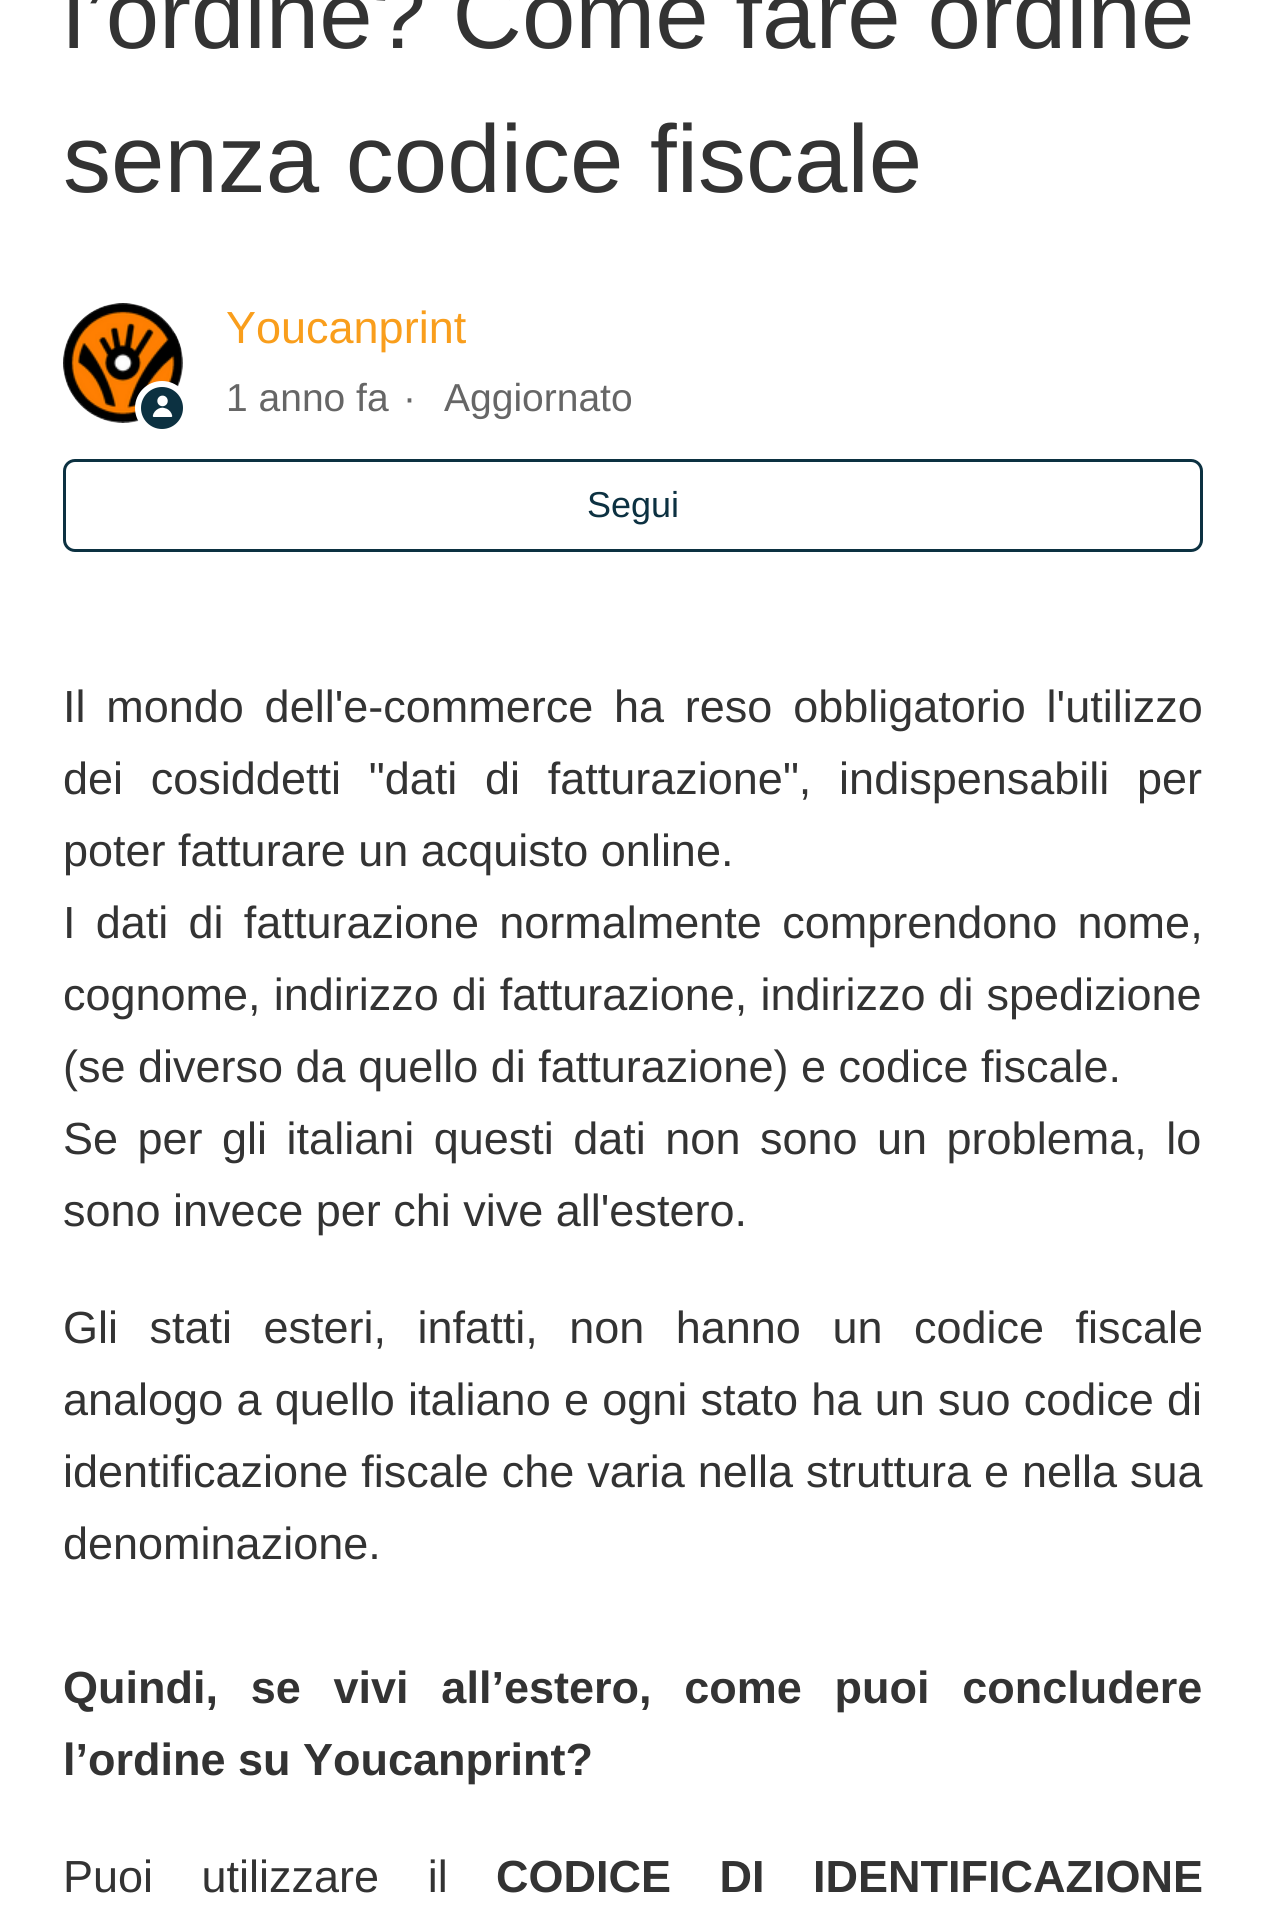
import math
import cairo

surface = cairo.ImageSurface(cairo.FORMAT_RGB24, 1264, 1905)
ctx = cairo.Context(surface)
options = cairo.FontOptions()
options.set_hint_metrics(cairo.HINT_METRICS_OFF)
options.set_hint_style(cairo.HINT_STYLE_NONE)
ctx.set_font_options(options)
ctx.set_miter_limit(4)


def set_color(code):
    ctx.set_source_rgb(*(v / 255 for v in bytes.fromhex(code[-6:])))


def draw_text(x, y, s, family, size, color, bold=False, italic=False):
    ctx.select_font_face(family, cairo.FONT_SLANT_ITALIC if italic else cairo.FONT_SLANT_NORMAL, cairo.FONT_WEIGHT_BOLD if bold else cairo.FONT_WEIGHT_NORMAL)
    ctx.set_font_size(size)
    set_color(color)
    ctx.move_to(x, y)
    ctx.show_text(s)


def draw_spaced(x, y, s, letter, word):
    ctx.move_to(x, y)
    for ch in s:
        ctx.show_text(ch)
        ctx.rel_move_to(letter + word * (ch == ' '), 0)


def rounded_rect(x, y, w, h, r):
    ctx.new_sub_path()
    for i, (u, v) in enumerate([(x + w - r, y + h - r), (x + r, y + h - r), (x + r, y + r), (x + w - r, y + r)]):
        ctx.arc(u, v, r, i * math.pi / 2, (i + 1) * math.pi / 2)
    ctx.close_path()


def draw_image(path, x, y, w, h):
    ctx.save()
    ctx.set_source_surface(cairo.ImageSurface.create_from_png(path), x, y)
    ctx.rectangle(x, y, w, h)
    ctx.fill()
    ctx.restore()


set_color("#ffffff")
ctx.paint()
draw_text(63, 48, "l’ordine? Come fare ordine", "Liberation Sans", 96, "#333333")
draw_text(63, 192, "senza codice fiscale", "Liberation Sans", 96, "#333333")
draw_image("assets/img1.png", 63, 303, 120, 120)
set_color("#0c3141")
ctx.arc(162, 408, 24, 0, 2 * math.pi)
ctx.fill_preserve()
set_color("#ffffff")
ctx.set_line_width(6)
ctx.stroke()
draw_image("assets/img2.png", 152, 395, 21, 22)
draw_text(226, 343, "Youcanprint", "Liberation Sans", 45, "#f99e1c")
draw_text(226, 411, "1 anno fa", "Liberation Sans", 39, "#666666")
draw_text(403, 411, "·", "Liberation Sans", 39, "#666666")
draw_text(444, 411, "Aggiornato", "Liberation Sans", 39, "#666666")
rounded_rect(64.5, 460.5, 1137, 90, 10.5)
set_color("#0c3141")
ctx.set_line_width(3)
ctx.stroke()
draw_text(587, 517, "Segui", "Liberation Sans", 36, "#0c3141")
ctx.set_font_size(45)
set_color("#333333")
draw_spaced(63, 722, "Il mondo dell'e-commerce ha reso obbligatorio l'utilizzo", 0, 8.25)
draw_spaced(63, 794, "dei cosiddetti \"dati di fatturazione\", indispensabili per", 0, 15.25)
draw_text(63, 866, "poter fatturare un acquisto online.", "Liberation Sans", 45, "#333333")
draw_spaced(63, 938, "I dati di fatturazione normalmente comprendono nome,", 0, 7.75)
draw_spaced(63, 1010, "cognome, indirizzo di fatturazione, indirizzo di spedizione", 0, 0.5)
draw_text(63, 1082, "(se diverso da quello di fatturazione) e codice fiscale.", "Liberation Sans", 45, "#333333")
draw_spaced(63, 1154, "Se per gli italiani questi dati non sono un problema, lo", 0, 7)
draw_text(63, 1226, "sono invece per chi vive all'estero.", "Liberation Sans", 45, "#333333")
draw_spaced(63, 1343, "Gli stati esteri, infatti, non hanno un codice fiscale", 0, 19)
draw_spaced(63, 1415, "analogo a quello italiano e ogni stato ha un suo codice di", 0, 0.75)
draw_spaced(63, 1487, "identificazione fiscale che varia nella struttura e nella sua", 0, 0.5)
draw_text(63, 1559, "denominazione.", "Liberation Sans", 45, "#333333")
ctx.select_font_face("Liberation Sans", cairo.FONT_SLANT_NORMAL, cairo.FONT_WEIGHT_BOLD)
draw_spaced(63, 1703, "Quindi, se vivi all’estero, come puoi concludere", 0, 20.25)
draw_text(63, 1775, "l’ordine su Youcanprint?", "Liberation Sans", 45, "#333333", bold=True)
ctx.select_font_face("Liberation Sans")
draw_spaced(63, 1892, "Puoi utilizzare il", 0, 36)
ctx.select_font_face("Liberation Sans", cairo.FONT_SLANT_NORMAL, cairo.FONT_WEIGHT_BOLD)
draw_spaced(496, 1892, "CODICE DI IDENTIFICAZIONE", 0, 36)
surface.write_to_png("output.png")
